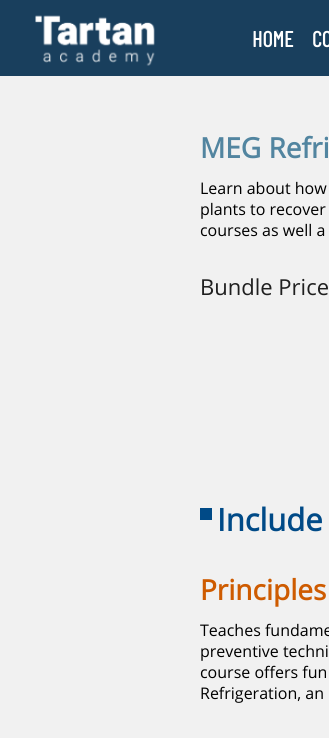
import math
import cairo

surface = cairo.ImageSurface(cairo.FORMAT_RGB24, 329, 738)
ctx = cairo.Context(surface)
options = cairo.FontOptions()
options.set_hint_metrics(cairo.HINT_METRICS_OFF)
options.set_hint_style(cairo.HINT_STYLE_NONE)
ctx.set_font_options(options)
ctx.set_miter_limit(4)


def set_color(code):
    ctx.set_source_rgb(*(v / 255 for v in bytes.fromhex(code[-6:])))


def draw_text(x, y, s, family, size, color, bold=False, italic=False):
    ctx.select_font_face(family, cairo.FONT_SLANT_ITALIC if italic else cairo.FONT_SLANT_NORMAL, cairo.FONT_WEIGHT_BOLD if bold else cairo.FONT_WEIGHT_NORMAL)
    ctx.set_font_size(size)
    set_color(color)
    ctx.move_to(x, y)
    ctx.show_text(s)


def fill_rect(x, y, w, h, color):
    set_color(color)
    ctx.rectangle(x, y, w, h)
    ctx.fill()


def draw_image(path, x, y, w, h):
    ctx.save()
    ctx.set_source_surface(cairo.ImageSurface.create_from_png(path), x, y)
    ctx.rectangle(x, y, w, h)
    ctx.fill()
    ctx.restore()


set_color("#f1f1f1")
ctx.paint()
fill_rect(0, 0, 329, 76, "#193f5d")
draw_image("assets/img1.png", 35, 15, 120, 51)
draw_text(252, 47, "HOME", "Barlow Condensed", 22, "#ffffff", bold=True)
draw_text(312, 47, "CO", "Barlow Condensed", 22, "#ffffff", bold=True)
draw_text(200, 158, "MEG Refri", "Open Sans", 28, "#5285a0", bold=True)
draw_text(200, 194, "Learn about how", "Open Sans", 16, "#000000")
draw_text(200, 215, "plants to recover", "Open Sans", 16, "#000000")
draw_text(200, 236, "courses as well a", "Open Sans", 16, "#000000")
draw_text(200, 295, "Bundle Price", "Open Sans", 22, "#1f1f1f")
fill_rect(200, 508, 12, 12, "#004a87")
draw_text(217, 531, "Include", "Open Sans", 31, "#004a87", bold=True)
draw_text(200, 600, "Principles", "Open Sans", 28, "#ce5b00", bold=True)
draw_text(200, 636, "Teaches fundame", "Open Sans", 16, "#000000")
draw_text(200, 657, "preventive techni", "Open Sans", 16, "#000000")
draw_text(200, 678, "course offers fun", "Open Sans", 16, "#000000")
draw_text(200, 699, "Refrigeration, an", "Open Sans", 16, "#000000")
surface.write_to_png("output.png")
